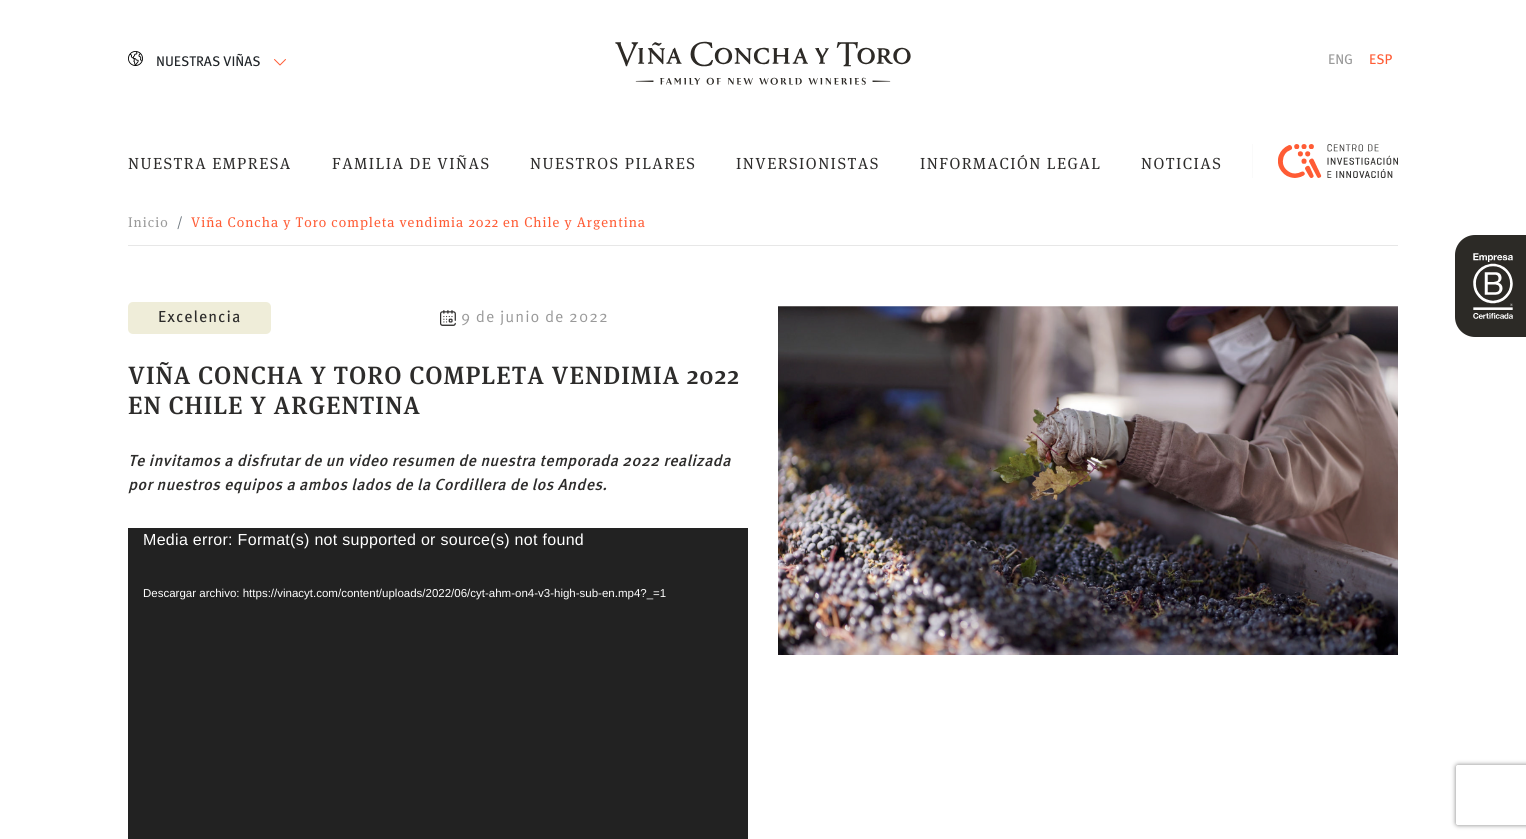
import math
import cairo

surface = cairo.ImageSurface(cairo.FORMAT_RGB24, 1526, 839)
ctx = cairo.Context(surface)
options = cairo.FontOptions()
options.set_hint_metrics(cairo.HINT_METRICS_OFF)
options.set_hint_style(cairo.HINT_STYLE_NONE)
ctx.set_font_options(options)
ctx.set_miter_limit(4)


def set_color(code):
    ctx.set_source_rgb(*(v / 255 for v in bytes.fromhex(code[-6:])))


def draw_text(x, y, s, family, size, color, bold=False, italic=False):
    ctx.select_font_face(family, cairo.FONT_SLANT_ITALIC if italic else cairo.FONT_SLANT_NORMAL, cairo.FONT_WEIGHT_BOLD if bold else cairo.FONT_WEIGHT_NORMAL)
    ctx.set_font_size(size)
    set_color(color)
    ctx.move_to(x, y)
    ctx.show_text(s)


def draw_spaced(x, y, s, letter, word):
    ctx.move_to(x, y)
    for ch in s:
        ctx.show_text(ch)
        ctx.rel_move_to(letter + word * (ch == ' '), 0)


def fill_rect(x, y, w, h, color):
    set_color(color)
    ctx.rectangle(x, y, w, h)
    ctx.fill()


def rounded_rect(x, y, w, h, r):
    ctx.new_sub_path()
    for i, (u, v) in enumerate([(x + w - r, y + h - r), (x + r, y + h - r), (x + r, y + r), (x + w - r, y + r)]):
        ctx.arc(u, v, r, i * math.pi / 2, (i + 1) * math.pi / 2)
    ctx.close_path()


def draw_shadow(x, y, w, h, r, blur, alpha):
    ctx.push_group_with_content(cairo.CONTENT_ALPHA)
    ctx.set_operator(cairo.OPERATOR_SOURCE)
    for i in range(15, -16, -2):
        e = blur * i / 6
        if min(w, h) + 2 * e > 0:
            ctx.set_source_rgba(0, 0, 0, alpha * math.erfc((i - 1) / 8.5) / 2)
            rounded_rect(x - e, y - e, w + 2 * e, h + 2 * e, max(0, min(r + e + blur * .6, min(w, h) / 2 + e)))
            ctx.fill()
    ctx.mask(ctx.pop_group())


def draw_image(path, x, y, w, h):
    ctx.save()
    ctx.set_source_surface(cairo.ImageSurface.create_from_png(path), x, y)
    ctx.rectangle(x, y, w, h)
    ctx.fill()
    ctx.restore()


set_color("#ffffff")
ctx.paint()
draw_image("assets/img1.png", 128, 51, 15, 15)
draw_text(156, 66, "NUESTRAS VIÑAS", "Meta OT", 14, "#212529")
ctx.new_path()
ctx.move_to(285.5, 59.5)
ctx.line_to(280, 65)
ctx.line_to(274.5, 59.5)
set_color("#ff5c35")
ctx.set_line_width(1)
ctx.set_line_cap(cairo.LINE_CAP_ROUND)
ctx.set_line_join(cairo.LINE_JOIN_ROUND)
ctx.stroke()
draw_image("assets/img2.png", 615, 41, 296, 44)
draw_text(1328, 64, "ENG", "Meta OT", 14, "#999999")
draw_text(1369, 64, "ESP", "Meta OT", 14, "#ff5c35")
ctx.select_font_face("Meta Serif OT")
ctx.set_font_size(16)
set_color("#2d2c2b")
draw_spaced(128, 169, "NUESTRA EMPRESA", 1.5, 0)
draw_spaced(332, 169, "FAMILIA DE VIÑAS", 1.5, 0)
draw_spaced(530, 169, "NUESTROS PILARES", 1.5, 0)
draw_spaced(736, 169, "INVERSIONISTAS", 1.5, 0)
draw_spaced(920, 169, "INFORMACIÓN LEGAL", 1.5, 0)
draw_spaced(1141, 169, "NOTICIAS", 1.5, 0)
fill_rect(1252, 144, 1, 34, "#fafafa")
draw_image("assets/img3.png", 1278, 144, 120, 34)
fill_rect(128, 245, 1270, 1, "#e7e7e7")
ctx.set_font_size(14)
set_color("#999999")
draw_spaced(128, 227, "Inicio", 1, 0)
set_color("#6c757d")
draw_spaced(177, 227, "/", 1, 0)
set_color("#ff5c35")
draw_spaced(191, 227, "Viña Concha y Toro completa vendimia 2022 en Chile y Argentina", 1, 0)
set_color("#efedd9")
rounded_rect(128, 302, 143, 32, 5)
ctx.fill()
ctx.select_font_face("Meta OT")
ctx.set_font_size(16)
set_color("#2d2c2b")
draw_spaced(158, 322, "Excelencia", 1, 0)
draw_image("assets/img4.png", 440, 310, 16, 16)
ctx.select_font_face("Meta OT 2")
set_color("#999999")
draw_spaced(461, 322, "9 de junio de 2022", 1, 0)
ctx.select_font_face("Meta Serif OT Medium")
ctx.set_font_size(25)
set_color("#2d2c2b")
draw_spaced(128, 384, "VIÑA CONCHA Y TORO COMPLETA VENDIMIA 2022", 1, 0)
draw_spaced(128, 414, "EN CHILE Y ARGENTINA", 1, 0)
ctx.select_font_face("Meta OT Medium", cairo.FONT_SLANT_ITALIC)
ctx.set_font_size(16)
draw_spaced(128, 466, "Te invitamos a disfrutar de un video resumen de nuestra temporada 2022 realizada", 0.3, 0)
draw_spaced(128, 490, "por nuestros equipos a ambos lados de la Cordillera de los Andes.", 0.3, 0)
fill_rect(128, 528, 620, 311, "#222222")
ctx.select_font_face("Liberation Sans")
set_color("#ffffff")
draw_spaced(143, 545, "Media error: Format(s) not supported or source(s) not found", 0.3, 0)
draw_text(143, 597, "Descargar archivo: https://vinacyt.com/content/uploads/2022/06/cyt-ahm-on4-v3-high-sub-en.mp4?_=1", "Liberation Sans", 11.5, "#ffffff")
draw_image("assets/img5.png", 778, 306, 620, 349)
set_color("#2c2a26")
ctx.new_path()
ctx.move_to(1475, 235)
ctx.line_to(1526, 235)
ctx.line_to(1526, 337)
ctx.line_to(1475, 337)
ctx.curve_to(1464, 337, 1455, 328, 1455, 317)
ctx.line_to(1455, 255)
ctx.curve_to(1455, 244, 1464, 235, 1475, 235)
ctx.close_path()
ctx.fill()
draw_image("assets/img6.png", 1473, 253, 40, 66)
ctx.save()
ctx.set_fill_rule(cairo.FILL_RULE_EVEN_ODD)
ctx.new_path()
ctx.move_to(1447, 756)
ctx.line_to(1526, 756)
ctx.line_to(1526, 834)
ctx.line_to(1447, 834)
ctx.close_path()
ctx.move_to(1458, 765)
ctx.line_to(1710, 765)
ctx.curve_to(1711, 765, 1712, 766, 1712, 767)
ctx.line_to(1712, 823)
ctx.curve_to(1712, 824, 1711, 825, 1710, 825)
ctx.line_to(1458, 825)
ctx.curve_to(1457, 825, 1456, 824, 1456, 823)
ctx.line_to(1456, 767)
ctx.curve_to(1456, 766, 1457, 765, 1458, 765)
ctx.close_path()
ctx.clip()
set_color("#808080")
draw_shadow(1456, 765, 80, 60, 2, 2.5, 1)
ctx.restore()
surface.write_to_png("output.png")
